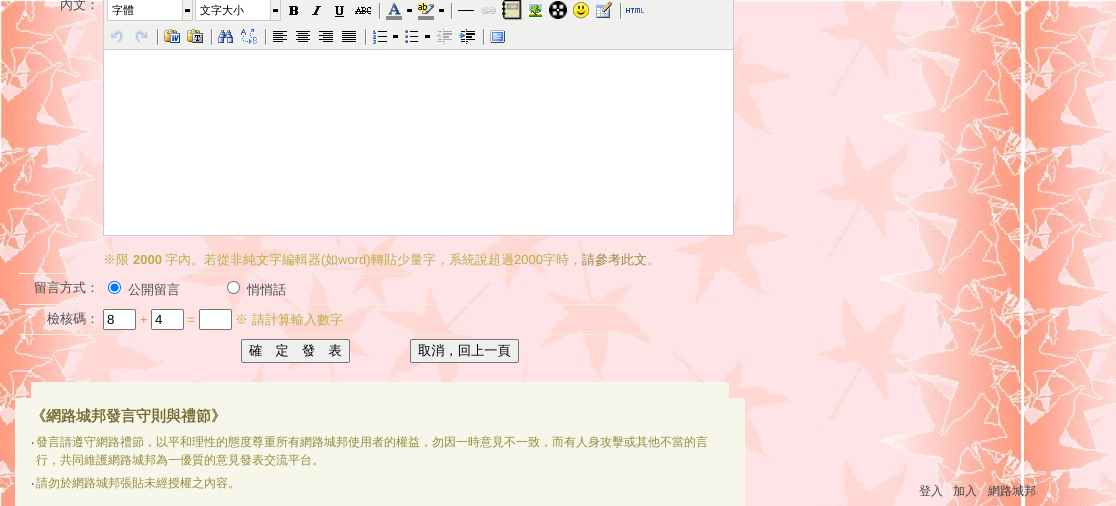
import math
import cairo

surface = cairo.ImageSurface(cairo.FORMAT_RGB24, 1116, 506)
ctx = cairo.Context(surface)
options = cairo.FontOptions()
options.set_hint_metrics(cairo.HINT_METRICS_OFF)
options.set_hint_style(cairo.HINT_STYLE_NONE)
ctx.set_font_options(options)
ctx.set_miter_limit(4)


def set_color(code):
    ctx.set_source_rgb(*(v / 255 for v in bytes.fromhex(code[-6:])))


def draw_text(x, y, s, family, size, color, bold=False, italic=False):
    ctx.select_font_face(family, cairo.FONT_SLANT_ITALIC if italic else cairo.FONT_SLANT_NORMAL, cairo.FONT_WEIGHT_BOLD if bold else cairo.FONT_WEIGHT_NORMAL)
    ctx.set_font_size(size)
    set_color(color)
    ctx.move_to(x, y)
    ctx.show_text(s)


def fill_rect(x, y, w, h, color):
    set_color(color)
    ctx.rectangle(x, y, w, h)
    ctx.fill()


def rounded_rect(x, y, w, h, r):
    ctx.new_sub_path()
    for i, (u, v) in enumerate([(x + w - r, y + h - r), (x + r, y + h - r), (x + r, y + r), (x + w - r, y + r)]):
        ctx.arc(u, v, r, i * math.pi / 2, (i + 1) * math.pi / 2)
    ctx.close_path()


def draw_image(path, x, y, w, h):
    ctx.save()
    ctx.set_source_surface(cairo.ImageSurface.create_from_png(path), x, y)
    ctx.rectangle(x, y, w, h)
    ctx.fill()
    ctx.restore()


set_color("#ffffff")
ctx.paint()
draw_image("assets/img1.png", 0, 0, 1116, 506)
draw_text(60, 9, "內文：", "WenQuanYi Zen Hei Medium", 13, "#4d4d4d")
fill_rect(733, 0, 1, 236, "#cccccc")
fill_rect(103, 0, 1, 236, "#cccccc")
fill_rect(104, 0, 629, 49, "#f0f0ee")
fill_rect(108, 0, 74, 20, "#ffffff")
fill_rect(107, 20, 75, 1, "#cccccc")
fill_rect(107, 0, 1, 21, "#cccccc")
draw_text(112, 14, "字體", "WenQuanYi Zen Hei Medium", 11, "#000000")
fill_rect(185, 9, 5, 3, "#000000")
ctx.rectangle(182.5, -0.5, 10, 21)
set_color("#cccccc")
ctx.set_line_width(1)
ctx.stroke()
fill_rect(196, 0, 74, 20, "#ffffff")
fill_rect(195, 20, 75, 1, "#cccccc")
fill_rect(195, 0, 1, 21, "#cccccc")
draw_text(200, 14, "文字大小", "WenQuanYi Zen Hei Medium", 11, "#000000")
fill_rect(273, 9, 5, 3, "#000000")
ctx.rectangle(270.5, -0.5, 10, 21)
set_color("#cccccc")
ctx.stroke()
draw_image("assets/img2.png", 289, 6, 9, 9)
draw_image("assets/img3.png", 312, 6, 9, 9)
draw_image("assets/img4.png", 335, 6, 9, 11)
draw_image("assets/img5.png", 355, 7, 16, 7)
draw_image("assets/img6.png", 379, 3, 2, 17)
draw_image("assets/img7.png", 388, 3, 13, 12)
fill_rect(386, 16, 16, 4, "#888888")
fill_rect(407, 9, 5, 3, "#000000")
draw_image("assets/img8.png", 418, 3, 16, 11)
fill_rect(418, 16, 16, 4, "#888888")
fill_rect(439, 9, 5, 3, "#000000")
draw_image("assets/img6.png", 451, 3, 2, 17)
fill_rect(458, 10, 16, 1, "#000000")
draw_image("assets/img9.png", 481, 7, 15, 7)
draw_image("assets/img10.png", 502, 0, 20, 20)
draw_image("assets/img11.png", 502, 0, 20, 20)
draw_image("assets/img12.png", 528, 3, 15, 15)
draw_image("assets/img13.png", 549, 1, 18, 18)
draw_image("assets/img14.png", 549, 1, 18, 18)
draw_image("assets/img15.png", 573, 2, 16, 17)
draw_image("assets/img16.png", 596, 2, 16, 16)
draw_image("assets/img6.png", 620, 3, 2, 17)
draw_image("assets/img17.png", 626, 8, 18, 5)
draw_image("assets/img18.png", 111, 30, 12, 13)
draw_image("assets/img19.png", 135, 30, 12, 13)
draw_image("assets/img6.png", 157, 29, 2, 17)
draw_image("assets/img20.png", 164, 29, 16, 14)
draw_image("assets/img21.png", 187, 29, 16, 14)
draw_image("assets/img6.png", 211, 29, 2, 17)
draw_image("assets/img22.png", 218, 30, 15, 13)
draw_image("assets/img23.png", 241, 29, 16, 15)
draw_image("assets/img6.png", 265, 29, 2, 17)
draw_image("assets/img24.png", 273, 31, 14, 11)
draw_image("assets/img25.png", 296, 31, 14, 11)
draw_image("assets/img26.png", 319, 31, 14, 11)
draw_image("assets/img27.png", 342, 31, 14, 11)
draw_image("assets/img6.png", 365, 29, 2, 17)
draw_image("assets/img28.png", 373, 30, 14, 14)
fill_rect(393, 35, 5, 3, "#000000")
draw_image("assets/img29.png", 405, 30, 13, 13)
fill_rect(425, 35, 5, 3, "#000000")
draw_image("assets/img30.png", 436, 29, 16, 15)
draw_image("assets/img31.png", 459, 29, 16, 15)
draw_image("assets/img6.png", 483, 29, 2, 17)
draw_image("assets/img32.png", 490, 30, 15, 13)
fill_rect(104, 49, 629, 1, "#cccccc")
fill_rect(104, 235, 629, 1, "#cccccc")
fill_rect(104, 50, 629, 185, "#ffffff")
draw_text(103, 264, "※限", "WenQuanYi Zen Hei Medium", 13, "#b9ae47")
draw_text(133, 264, "2000", "Liberation Sans", 13, "#b9ae47", bold=True)
draw_text(165, 264, "字內。若從非純文字編輯器", "WenQuanYi Zen Hei Medium", 13, "#b9ae47")
draw_text(321, 264, "(", "Liberation Sans", 13, "#b9ae47")
draw_text(325, 264, "如", "WenQuanYi Zen Hei Medium", 13, "#b9ae47")
draw_text(338, 264, "word)", "Liberation Sans", 13, "#b9ae47")
draw_text(371, 264, "轉貼少量字，系統說超過", "WenQuanYi Zen Hei Medium", 13, "#b9ae47")
draw_text(514, 264, "2000", "Liberation Sans", 13, "#b9ae47")
draw_text(543, 264, "字時，", "WenQuanYi Zen Hei Medium", 13, "#b9ae47")
draw_text(582, 264, "請參考此文", "WenQuanYi Zen Hei Medium", 13, "#948b39")
draw_text(647, 264, "。", "WenQuanYi Zen Hei Medium", 13, "#b9ae47")
fill_rect(19, 273, 722, 1, "#f1efda")
draw_text(34, 292, "留言方式：", "WenQuanYi Zen Hei Medium", 13, "#4d4d4d")
set_color("#ffffff")
ctx.new_path()
ctx.arc(114.5, 287.5, 6, 0, 2 * math.pi)
ctx.fill_preserve()
set_color("#0075ff")
ctx.stroke()
ctx.arc(114.5, 287.5, 4, 0, 2 * math.pi)
ctx.fill()
draw_text(128, 294, "公開留言", "WenQuanYi Zen Hei Medium", 13, "#4d4d4d")
set_color("#ffffff")
ctx.new_path()
ctx.arc(233.5, 287.5, 6, 0, 2 * math.pi)
ctx.fill_preserve()
set_color("#767676")
ctx.stroke()
draw_text(247, 294, "悄悄話", "WenQuanYi Zen Hei Medium", 13, "#4d4d4d")
fill_rect(19, 304, 722, 1, "#f1efda")
draw_text(47, 323, "檢核碼：", "WenQuanYi Zen Hei Medium", 13, "#4d4d4d")
set_color("#ffffff")
rounded_rect(103.5, 309.5, 32, 20, 1.5)
ctx.fill_preserve()
set_color("#767676")
ctx.stroke()
draw_text(107, 324, "8", "Liberation Sans", 13.25, "#000000")
draw_text(140, 324, "+", "Liberation Sans", 13, "#b9ae47")
set_color("#ffffff")
rounded_rect(151.5, 309.5, 32, 20, 1.5)
ctx.fill_preserve()
set_color("#767676")
ctx.stroke()
draw_text(155, 324, "4", "Liberation Sans", 13.25, "#000000")
draw_text(187, 324, "=", "Liberation Sans", 13, "#b9ae47")
set_color("#ffffff")
rounded_rect(199.5, 309.5, 32, 20, 1.5)
ctx.fill_preserve()
set_color("#767676")
ctx.stroke()
draw_text(235, 324, "※ 請計算輸入數字", "WenQuanYi Zen Hei Medium", 13, "#b9ae47")
fill_rect(19, 334, 722, 1, "#f1efda")
set_color("#efefef")
rounded_rect(241.5, 339.5, 108, 23, 1.5)
ctx.fill_preserve()
set_color("#767676")
ctx.stroke()
draw_text(249, 355, "確　定　發　表", "WenQuanYi Zen Hei Medium", 13.25, "#000000")
set_color("#efefef")
rounded_rect(410.5, 339.5, 108, 23, 1.5)
ctx.fill_preserve()
set_color("#767676")
ctx.stroke()
draw_text(418, 355, "取消，回上一頁", "WenQuanYi Zen Hei Medium", 13.25, "#000000")
fill_rect(31, 382, 698, 16, "#f7f6eb")
fill_rect(15, 398, 730, 108, "#f7f6eb")
draw_text(31, 421, "《網路城邦發言守則與禮節》", "WenQuanYi Zen Hei", 15, "#706a2b", bold=True)
draw_text(31, 446, "‧", "Noto Sans", 12, "#333333")
draw_text(36, 446, "發言請遵守網路禮節，以平和理性的態度尊重所有網路城邦使用者的權益，勿因一時意見不一致，而有人身攻擊或其他不當的言", "WenQuanYi Zen Hei Medium", 12, "#948b39")
draw_text(36, 464, "行，共同維護網路城邦為一優質的意見發表交流平台。", "WenQuanYi Zen Hei Medium", 12, "#948b39")
draw_text(31, 487, "‧", "Noto Sans", 12, "#333333")
draw_text(36, 487, "請勿於網路城邦張貼未經授權之內容。", "WenQuanYi Zen Hei Medium", 12, "#948b39")
draw_text(919, 495, "登入", "WenQuanYi Zen Hei Medium", 12, "#444444")
draw_text(953, 495, "加入", "WenQuanYi Zen Hei Medium", 12, "#444444")
draw_text(988, 495, "網路城邦", "WenQuanYi Zen Hei Medium", 12, "#444444")
surface.write_to_png("output.png")
